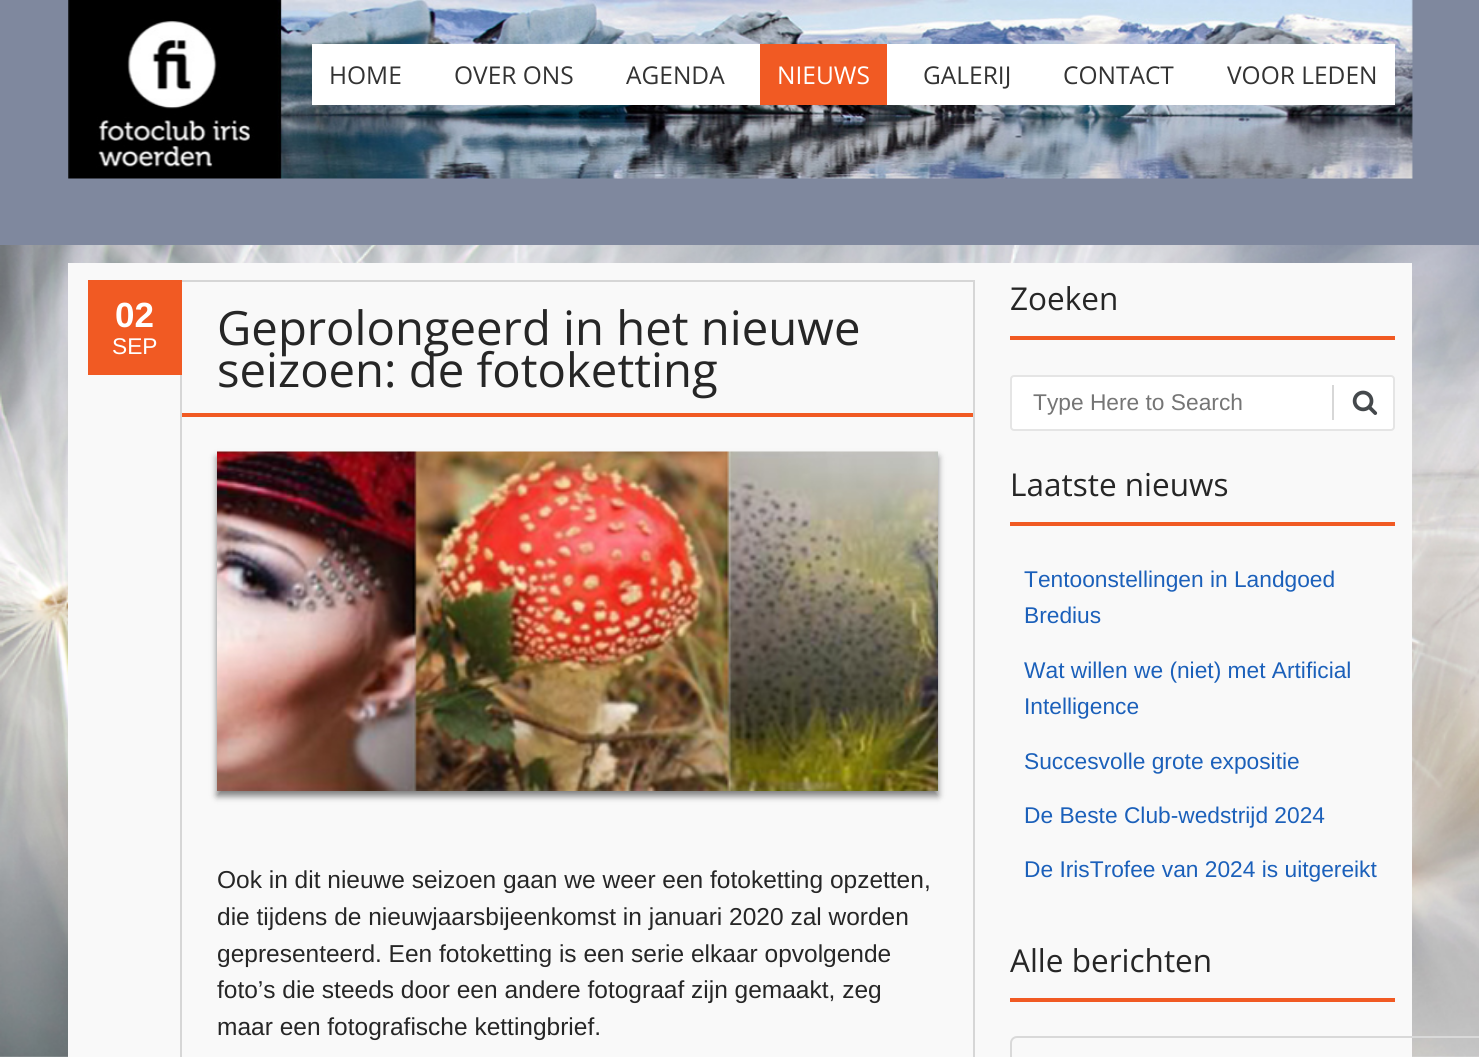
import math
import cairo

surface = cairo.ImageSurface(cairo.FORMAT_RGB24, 1479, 1057)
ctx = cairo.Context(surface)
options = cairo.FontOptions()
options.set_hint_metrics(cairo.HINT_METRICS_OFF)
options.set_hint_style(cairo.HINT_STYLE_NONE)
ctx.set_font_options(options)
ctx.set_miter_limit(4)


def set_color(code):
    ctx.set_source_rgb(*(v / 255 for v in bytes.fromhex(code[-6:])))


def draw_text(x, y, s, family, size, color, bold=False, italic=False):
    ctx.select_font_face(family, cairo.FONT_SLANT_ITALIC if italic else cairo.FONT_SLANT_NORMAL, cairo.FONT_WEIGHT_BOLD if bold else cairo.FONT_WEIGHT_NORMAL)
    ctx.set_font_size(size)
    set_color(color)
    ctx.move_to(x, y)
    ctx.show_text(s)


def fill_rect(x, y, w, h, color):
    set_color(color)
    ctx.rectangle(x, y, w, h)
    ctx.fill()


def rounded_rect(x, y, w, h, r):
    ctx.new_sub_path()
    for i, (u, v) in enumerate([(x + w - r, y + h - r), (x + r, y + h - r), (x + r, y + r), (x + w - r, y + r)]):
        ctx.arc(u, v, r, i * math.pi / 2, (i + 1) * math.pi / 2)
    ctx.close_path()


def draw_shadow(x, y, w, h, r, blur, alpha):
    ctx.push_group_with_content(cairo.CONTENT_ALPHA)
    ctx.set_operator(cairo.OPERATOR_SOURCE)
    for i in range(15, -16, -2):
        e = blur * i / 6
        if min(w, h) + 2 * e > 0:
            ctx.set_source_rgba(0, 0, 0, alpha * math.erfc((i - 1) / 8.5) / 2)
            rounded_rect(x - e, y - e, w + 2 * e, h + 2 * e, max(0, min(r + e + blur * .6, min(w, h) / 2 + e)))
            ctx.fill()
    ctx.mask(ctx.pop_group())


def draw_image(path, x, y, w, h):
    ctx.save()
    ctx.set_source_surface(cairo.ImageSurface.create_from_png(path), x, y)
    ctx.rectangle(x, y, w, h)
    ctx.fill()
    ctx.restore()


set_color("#ffffff")
ctx.paint()
draw_image("assets/img1.png", 0, 245, 1479, 812)
fill_rect(0, 0, 1479, 245, "#7f889e")
draw_image("assets/img2.png", 68, 0, 1345, 179)
fill_rect(312, 44, 1083, 61, "#ffffff")
draw_text(329, 84, "HOME", "Open Sans", 24.5, "#333333")
draw_text(454, 84, "OVER ONS", "Open Sans", 24.5, "#333333")
draw_text(626, 84, "AGENDA", "Open Sans", 24.5, "#333333")
fill_rect(760, 44, 127, 61, "#f15a23")
draw_text(777, 84, "NIEUWS", "Open Sans", 24.5, "#ffffff")
draw_text(923, 84, "GALERIJ", "Open Sans", 24.5, "#333333")
draw_text(1063, 84, "CONTACT", "Open Sans", 24.5, "#333333")
draw_text(1227, 84, "VOOR LEDEN", "Open Sans", 24.5, "#333333")
fill_rect(68, 263, 1344, 794, "#f9f9f9")
ctx.rectangle(181, 281, 793, 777)
set_color("#d6d6d6")
ctx.stroke()
fill_rect(88, 280, 94, 95, "#f15a23")
draw_text(115, 327, "02", "Liberation Sans", 35, "#ffffff", bold=True)
draw_text(112, 354, "SEP", "Liberation Sans", 22.75, "#ffffff")
fill_rect(182, 413, 791, 4, "#f15a23")
draw_text(217, 345, "Geprolongeerd in het nieuwe", "Open Sans", 47.25, "#262626")
draw_text(217, 387, "seizoen: de fotoketting", "Open Sans", 47.25, "#262626")
set_color("#000000")
draw_shadow(217, 457, 721, 339, 0, 3.5, 0.5)
draw_image("assets/img3.png", 217, 451, 721, 340)
draw_text(217, 888, "Ook in dit nieuwe seizoen gaan we weer een fotoketting opzetten,", "Liberation Sans", 24.5, "#262626")
draw_text(217, 925, "die tijdens de nieuwjaarsbijeenkomst in januari 2020 zal worden", "Liberation Sans", 24.5, "#262626")
draw_text(217, 962, "gepresenteerd. Een fotoketting is een serie elkaar opvolgende", "Liberation Sans", 24.5, "#262626")
draw_text(217, 998, "foto’s die steeds door een andere fotograaf zijn gemaakt, zeg", "Liberation Sans", 24.5, "#262626")
draw_text(217, 1035, "maar een fotografische kettingbrief.", "Liberation Sans", 24.5, "#262626")
fill_rect(1010, 336, 385, 4, "#f15a23")
draw_text(1010, 310, "Zoeken", "Open Sans", 31.5, "#262626")
set_color("#ffffff")
rounded_rect(1011, 376, 383, 54, 3)
ctx.fill_preserve()
set_color("#e5e5e5")
ctx.stroke()
draw_text(1033, 410, "Type Here to Search", "Liberation Sans", 22.75, "#757575")
fill_rect(1332, 385, 2, 35, "#d7d7d7")
draw_image("assets/img4.png", 1352, 390, 26, 25)
fill_rect(1010, 522, 385, 4, "#f15a23")
draw_text(1010, 496, "Laatste nieuws", "Open Sans", 31.5, "#262626")
draw_text(1024, 587, "Tentoonstellingen in Landgoed", "Liberation Sans", 22.75, "#1b60ba")
draw_text(1024, 623, "Bredius", "Liberation Sans", 22.75, "#1b60ba")
draw_text(1024, 678, "Wat willen we (niet) met Artificial", "Liberation Sans", 22.75, "#1b60ba")
draw_text(1024, 714, "Intelligence", "Liberation Sans", 22.75, "#1b60ba")
draw_text(1024, 769, "Succesvolle grote expositie", "Liberation Sans", 22.75, "#1b60ba")
draw_text(1024, 823, "De Beste Club-wedstrijd 2024", "Liberation Sans", 22.75, "#1b60ba")
draw_text(1024, 877, "De IrisTrofee van 2024 is uitgereikt", "Liberation Sans", 22.75, "#1b60ba")
fill_rect(1010, 998, 385, 4, "#f15a23")
draw_text(1010, 972, "Alle berichten", "Open Sans", 31.5, "#262626")
rounded_rect(1011, 1037, 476, 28, 6)
set_color("#d9d9d9")
ctx.stroke()
surface.write_to_png("output.png")
